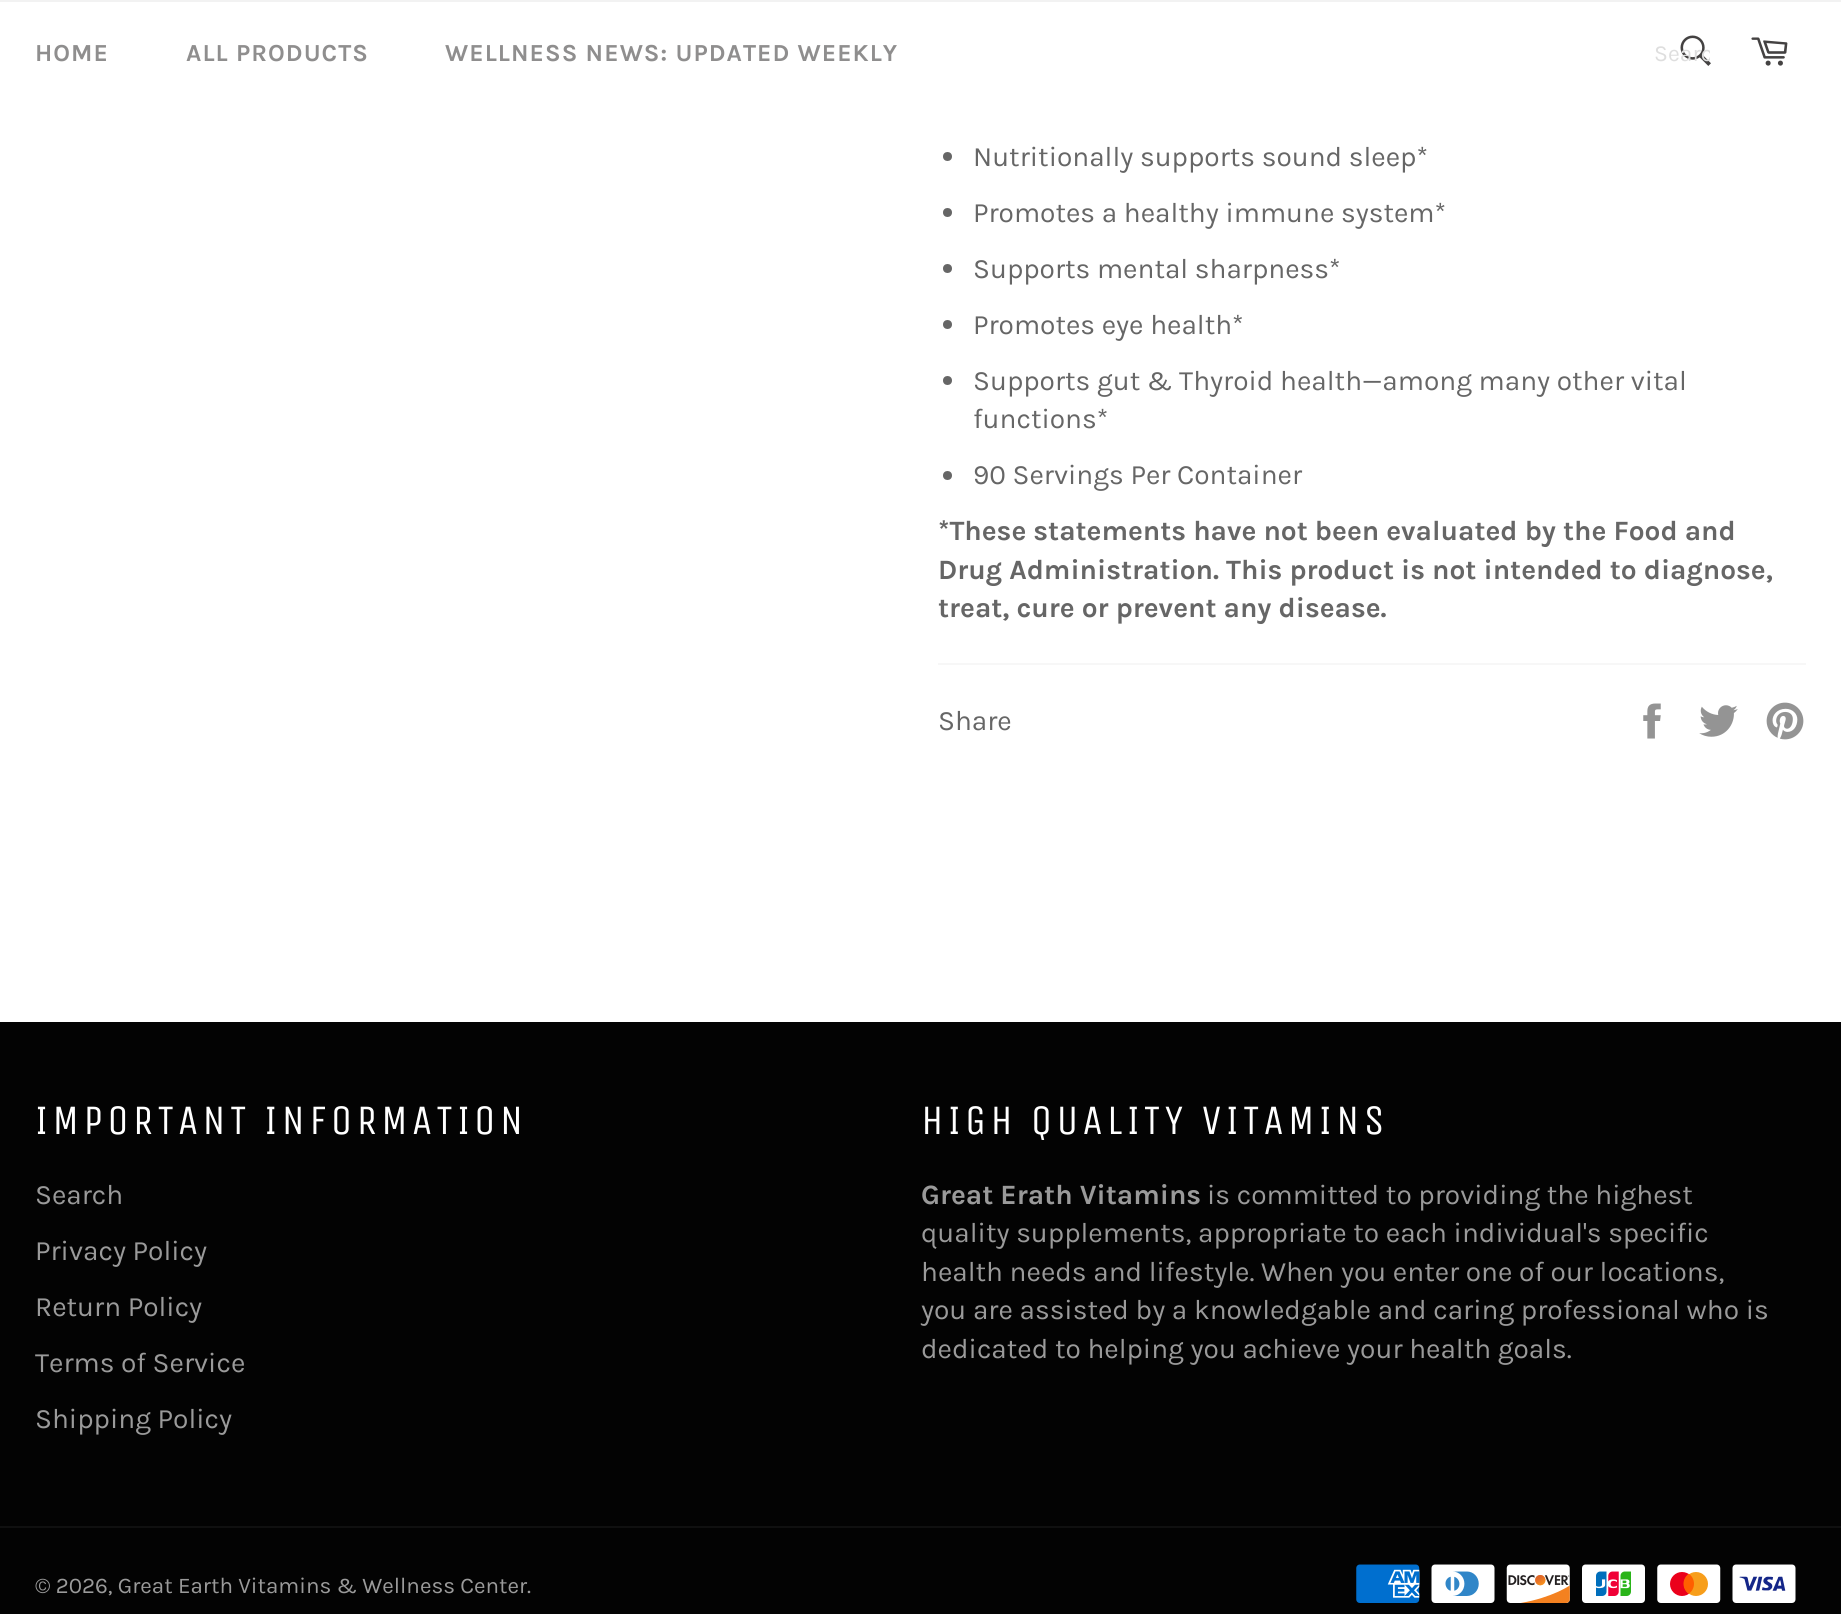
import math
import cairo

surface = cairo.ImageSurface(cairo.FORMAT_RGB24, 1841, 1614)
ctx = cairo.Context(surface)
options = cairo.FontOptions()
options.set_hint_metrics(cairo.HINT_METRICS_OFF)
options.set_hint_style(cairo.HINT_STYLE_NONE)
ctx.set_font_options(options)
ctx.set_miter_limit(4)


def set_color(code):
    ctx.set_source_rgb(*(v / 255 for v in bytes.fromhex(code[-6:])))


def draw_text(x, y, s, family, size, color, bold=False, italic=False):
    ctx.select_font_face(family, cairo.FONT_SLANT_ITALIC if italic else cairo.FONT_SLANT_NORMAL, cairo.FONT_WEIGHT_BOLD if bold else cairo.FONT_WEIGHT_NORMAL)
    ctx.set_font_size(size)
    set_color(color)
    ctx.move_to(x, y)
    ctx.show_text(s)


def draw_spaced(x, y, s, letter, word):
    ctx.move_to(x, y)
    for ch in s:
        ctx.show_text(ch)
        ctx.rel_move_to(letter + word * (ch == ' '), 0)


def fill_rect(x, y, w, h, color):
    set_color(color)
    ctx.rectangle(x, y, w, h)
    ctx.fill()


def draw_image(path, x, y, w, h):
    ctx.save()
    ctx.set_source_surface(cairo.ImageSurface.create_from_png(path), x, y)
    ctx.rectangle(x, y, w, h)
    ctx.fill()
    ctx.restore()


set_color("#ffffff")
ctx.paint()
fill_rect(0, 0, 1841, 2, "#f2f2f2")
ctx.select_font_face("Karla", cairo.FONT_SLANT_NORMAL, cairo.FONT_WEIGHT_BOLD)
ctx.set_font_size(24.5)
set_color("#8f8e8e")
draw_spaced(35, 61, "HOME", 1.05, 0)
draw_spaced(186, 61, "ALL PRODUCTS", 1.05, 0)
draw_spaced(445, 61, "WELLNESS NEWS: UPDATED WEEKLY", 1.05, 0)
draw_image("assets/img1.png", 1680, 35, 31, 31)
ctx.save()
ctx.rectangle(1654, 40, 56, 27)
ctx.clip()
draw_text(1654, 61, "Searc", "Karla", 23, "#dedede")
ctx.restore()
draw_image("assets/img2.png", 1751, 37, 37, 29)
set_color("#666666")
ctx.arc(947.5, 156.5, 4.5, 0, 2 * math.pi)
ctx.fill()
draw_text(973, 166, "Nutritionally supports sound sleep*", "Karla", 28, "#666666")
ctx.new_path()
ctx.arc(947.5, 212.5, 4.5, 0, 2 * math.pi)
ctx.fill()
draw_text(973, 222, "Promotes a healthy immune system*", "Karla", 28, "#666666")
ctx.new_path()
ctx.arc(947.5, 268.5, 4.5, 0, 2 * math.pi)
ctx.fill()
draw_text(973, 278, "Supports mental sharpness*", "Karla", 28, "#666666")
ctx.new_path()
ctx.arc(947.5, 324.5, 4.5, 0, 2 * math.pi)
ctx.fill()
draw_text(973, 334, "Promotes eye health*", "Karla", 28, "#666666")
ctx.new_path()
ctx.arc(947.5, 380.5, 4.5, 0, 2 * math.pi)
ctx.fill()
draw_text(973, 390, "Supports gut & Thyroid health—among many other vital", "Karla", 28, "#666666")
draw_text(973, 428, "functions*", "Karla", 28, "#666666")
ctx.new_path()
ctx.arc(947.5, 475.5, 4.5, 0, 2 * math.pi)
ctx.fill()
draw_text(973, 484, "90 Servings Per Container", "Karla", 28, "#666666")
draw_text(938, 540, "*These statements have not been evaluated by the Food and", "Karla", 28, "#666666", bold=True)
draw_text(938, 579, "Drug Administration. This product is not intended to diagnose,", "Karla", 28, "#666666", bold=True)
draw_text(938, 617, "treat, cure or prevent any disease.", "Karla", 28, "#666666", bold=True)
fill_rect(938, 663, 868, 2, "#f7f7f7")
draw_text(938, 730, "Share", "Karla", 28, "#666666")
draw_image("assets/img3.png", 1643, 703, 18, 36)
draw_image("assets/img4.png", 1699, 705, 39, 32)
draw_image("assets/img5.png", 1766, 702, 38, 38)
fill_rect(0, 1022, 1841, 592, "#030303")
ctx.select_font_face("Unica One")
ctx.set_font_size(42)
set_color("#ffffff")
draw_spaced(35, 1134, "IMPORTANT INFORMATION", 4.2, 0)
draw_text(35, 1204, "Search", "Karla", 28, "#9a9a9a")
draw_text(35, 1260, "Privacy Policy", "Karla", 28, "#9a9a9a")
draw_text(35, 1316, "Return Policy", "Karla", 28, "#9a9a9a")
draw_text(35, 1372, "Terms of Service", "Karla", 28, "#9a9a9a")
draw_text(35, 1428, "Shipping Policy", "Karla", 28, "#9a9a9a")
ctx.select_font_face("Unica One")
ctx.set_font_size(42)
set_color("#ffffff")
draw_spaced(921, 1134, "HIGH QUALITY VITAMINS", 4.2, 0)
draw_text(921, 1204, "Great Erath Vitamins", "Karla", 28, "#9a9a9a", bold=True)
draw_text(1207, 1204, "is committed to providing the highest", "Karla", 28, "#9a9a9a")
draw_text(921, 1242, "quality supplements, appropriate to each individual's specific", "Karla", 28, "#9a9a9a")
draw_text(921, 1281, "health needs and lifestyle. When you enter one of our locations,", "Karla", 28, "#9a9a9a")
draw_text(921, 1319, "you are assisted by a knowledgable and caring professional who is", "Karla", 28, "#9a9a9a")
draw_text(921, 1358, "dedicated to helping you achieve your health goals.", "Karla", 28, "#9a9a9a")
fill_rect(0, 1526, 1841, 2, "#101010")
draw_text(35, 1593, "© 2026, Great Earth Vitamins & Wellness Center.", "Karla", 22.4, "#9a9a9a")
draw_image("assets/img6.png", 1356, 1564, 64, 39)
draw_image("assets/img7.png", 1431, 1564, 64, 39)
draw_image("assets/img8.png", 1506, 1564, 64, 39)
draw_image("assets/img9.png", 1582, 1564, 63, 39)
draw_image("assets/img10.png", 1657, 1564, 64, 39)
draw_image("assets/img11.png", 1732, 1564, 64, 39)
surface.write_to_png("output.png")
